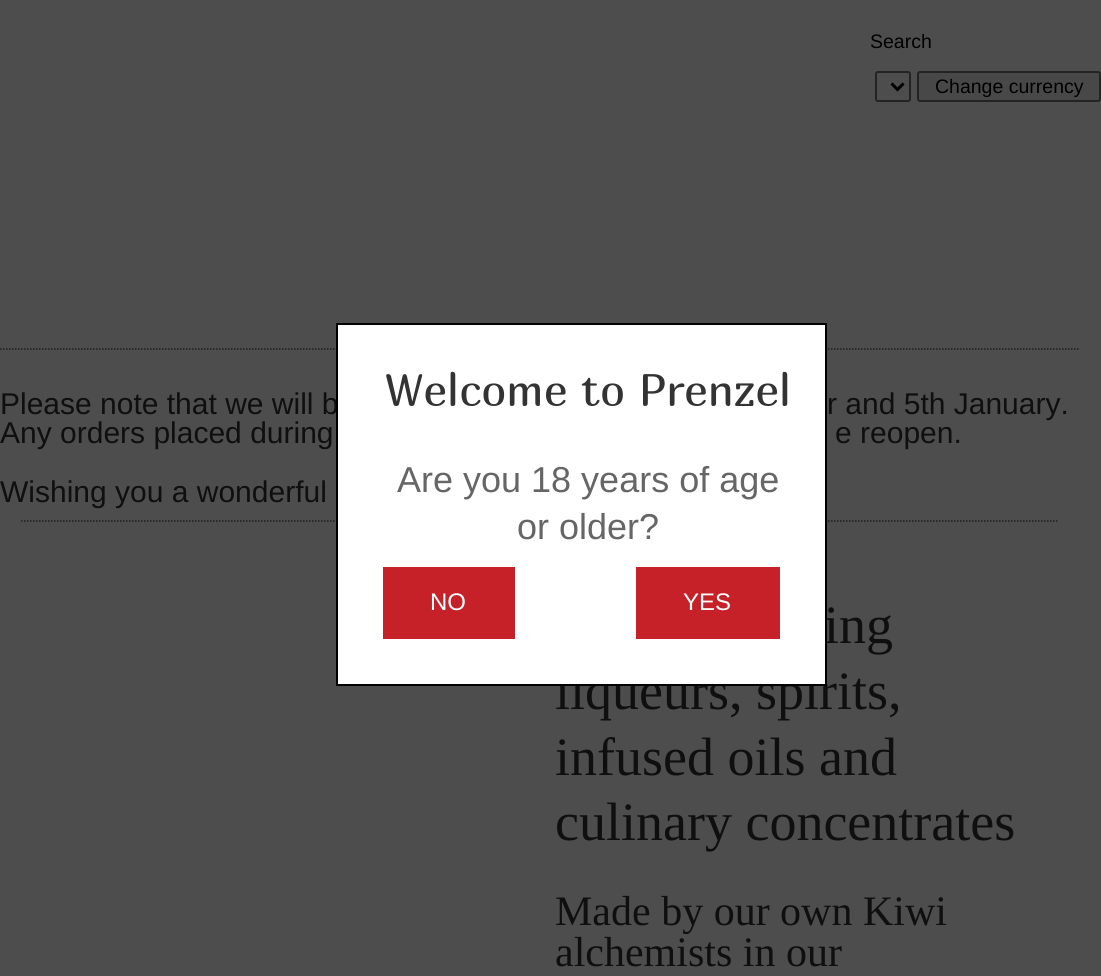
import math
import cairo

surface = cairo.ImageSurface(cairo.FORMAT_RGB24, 1101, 976)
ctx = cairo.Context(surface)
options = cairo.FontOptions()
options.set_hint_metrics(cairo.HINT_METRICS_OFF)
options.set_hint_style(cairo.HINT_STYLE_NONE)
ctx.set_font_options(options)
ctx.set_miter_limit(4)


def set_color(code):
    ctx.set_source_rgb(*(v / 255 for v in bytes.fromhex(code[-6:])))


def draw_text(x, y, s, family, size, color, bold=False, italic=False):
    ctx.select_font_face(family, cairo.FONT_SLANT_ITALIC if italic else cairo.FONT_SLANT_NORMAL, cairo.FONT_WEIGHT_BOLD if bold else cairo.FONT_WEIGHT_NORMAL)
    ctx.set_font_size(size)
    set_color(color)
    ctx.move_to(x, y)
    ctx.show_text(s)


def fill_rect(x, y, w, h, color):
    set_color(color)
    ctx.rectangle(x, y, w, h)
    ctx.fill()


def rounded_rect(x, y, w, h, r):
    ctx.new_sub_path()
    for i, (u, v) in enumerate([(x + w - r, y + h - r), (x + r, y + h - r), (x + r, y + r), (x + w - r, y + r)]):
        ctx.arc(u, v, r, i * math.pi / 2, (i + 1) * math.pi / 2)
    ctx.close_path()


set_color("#4d4d4d")
ctx.paint()
draw_text(870, 48, "Search", "Liberation Sans", 19.5, "#000000")
rounded_rect(876, 72, 34, 29, 2)
set_color("#232323")
ctx.stroke()
ctx.new_path()
ctx.move_to(891.5, 83.5)
ctx.line_to(897.5, 89.5)
ctx.line_to(903.5, 83.5)
set_color("#000000")
ctx.set_line_width(3)
ctx.stroke()
set_color("#484848")
rounded_rect(918, 72, 182, 29, 2)
ctx.fill_preserve()
set_color("#232323")
ctx.set_line_width(2)
ctx.stroke()
draw_text(935, 93, "Change currency", "Liberation Sans", 19.5, "#000000")
ctx.new_path()
ctx.move_to(0, 349)
ctx.line_to(1078.5, 349)
set_color("#1e1e1e")
ctx.set_line_width(1.5)
ctx.set_dash([1.5, 1.5])
ctx.stroke()
draw_text(0, 414, "Please note that we will b", "Liberation Sans", 30, "#0f0f0f")
ctx.new_path()
ctx.move_to(21, 521)
ctx.line_to(1059, 521)
set_color("#1e1e1e")
ctx.stroke()
draw_text(824, 643, "ing", "Liberation Serif", 54, "#0f0f0f")
draw_text(555, 709, "liqueurs, spirits,", "Liberation Serif", 54, "#0f0f0f")
set_color("#ffffff")
ctx.rectangle(337, 324, 489, 361)
ctx.fill_preserve()
set_color("#000000")
ctx.set_line_width(2)
ctx.set_dash([])
ctx.stroke()
draw_text(385, 406, "Welcome to Prenzel", "Marmelad", 45, "#333333")
draw_text(397, 492, "Are you 18 years of age", "Liberation Sans", 36, "#666666")
draw_text(517, 539, "or older?", "Liberation Sans", 36, "#666666")
fill_rect(383, 567, 132, 72, "#c62128")
draw_text(430, 610, "NO", "Liberation Sans", 24, "#ffffff")
fill_rect(636, 567, 144, 72, "#c62128")
draw_text(683, 610, "YES", "Liberation Sans", 24, "#ffffff")
draw_text(827, 414, "r and 5th January.", "Liberation Sans", 30, "#0f0f0f")
draw_text(0, 443, "Any orders placed during", "Liberation Sans", 30, "#0f0f0f")
draw_text(835, 443, "e reopen.", "Liberation Sans", 30, "#0f0f0f")
draw_text(0, 502, "Wishing you a wonderful", "Liberation Sans", 30, "#0f0f0f")
draw_text(555, 775, "infused oils and", "Liberation Serif", 54, "#0f0f0f")
draw_text(555, 840, "culinary concentrates", "Liberation Serif", 54, "#0f0f0f")
draw_text(555, 925, "Made by our own Kiwi", "Liberation Serif", 42, "#0f0f0f")
draw_text(555, 966, "alchemists in our", "Liberation Serif", 42, "#0f0f0f")
surface.write_to_png("output.png")
